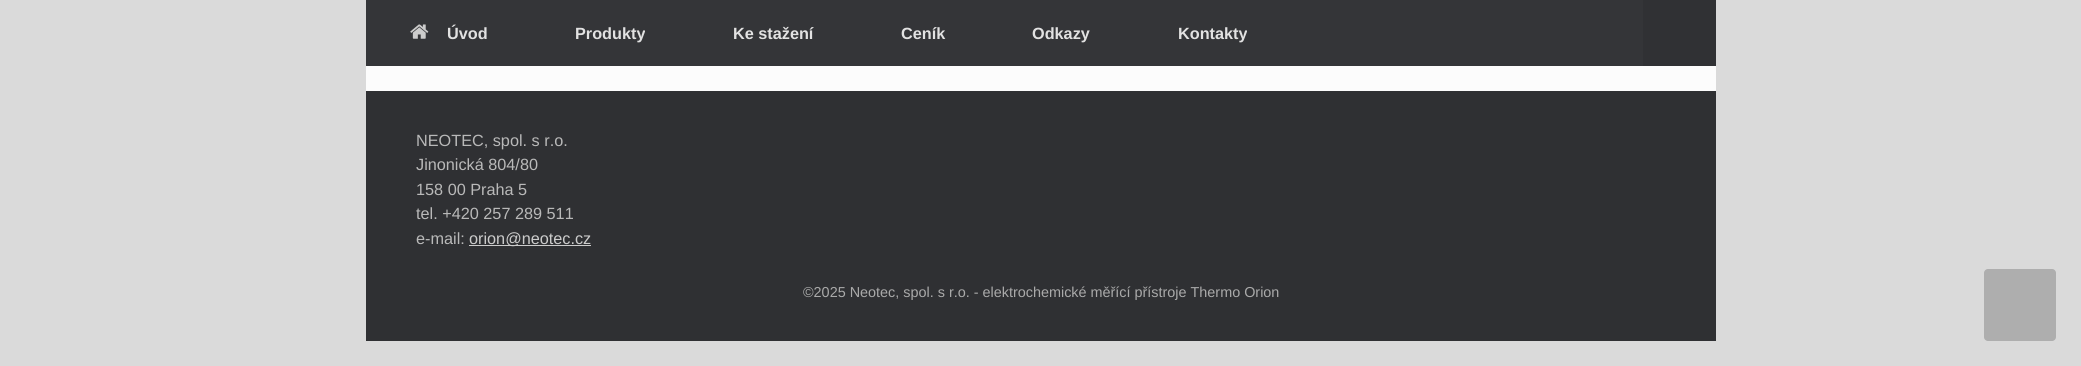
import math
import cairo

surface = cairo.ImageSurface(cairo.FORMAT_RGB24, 2081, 366)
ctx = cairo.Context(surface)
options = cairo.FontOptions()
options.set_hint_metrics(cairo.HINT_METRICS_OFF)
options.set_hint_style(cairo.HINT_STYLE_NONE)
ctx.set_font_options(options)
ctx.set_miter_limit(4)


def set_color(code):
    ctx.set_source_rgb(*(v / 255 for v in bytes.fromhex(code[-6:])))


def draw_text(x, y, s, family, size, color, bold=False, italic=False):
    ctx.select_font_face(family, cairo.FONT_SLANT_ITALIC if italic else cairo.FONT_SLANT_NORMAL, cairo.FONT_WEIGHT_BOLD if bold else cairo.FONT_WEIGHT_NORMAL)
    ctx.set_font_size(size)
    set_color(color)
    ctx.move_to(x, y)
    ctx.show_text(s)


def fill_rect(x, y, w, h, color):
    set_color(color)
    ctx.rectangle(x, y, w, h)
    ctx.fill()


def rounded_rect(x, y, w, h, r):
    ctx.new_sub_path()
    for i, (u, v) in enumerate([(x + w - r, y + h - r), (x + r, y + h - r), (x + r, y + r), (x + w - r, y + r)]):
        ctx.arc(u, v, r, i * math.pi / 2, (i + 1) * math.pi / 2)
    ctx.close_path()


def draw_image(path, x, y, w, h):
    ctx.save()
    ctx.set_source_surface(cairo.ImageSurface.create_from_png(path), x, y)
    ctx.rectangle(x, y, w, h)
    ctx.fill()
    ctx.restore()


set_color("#dadada")
ctx.paint()
fill_rect(366, 0, 1277, 66, "#343538")
draw_image("assets/img1.png", 410, 24, 19, 15)
draw_text(447, 39, "Úvod", "Liberation Sans", 16.25, "#e2e2e2", bold=True)
draw_text(575, 39, "Produkty", "Liberation Sans", 16.25, "#e2e2e2", bold=True)
draw_text(733, 39, "Ke stažení", "Liberation Sans", 16.25, "#e2e2e2", bold=True)
draw_text(901, 39, "Ceník", "Liberation Sans", 16.25, "#e2e2e2", bold=True)
draw_text(1032, 39, "Odkazy", "Liberation Sans", 16.25, "#e2e2e2", bold=True)
draw_text(1178, 39, "Kontakty", "Liberation Sans", 16.25, "#e2e2e2", bold=True)
fill_rect(1643, 0, 73, 66, "#303134")
fill_rect(366, 66, 1350, 25, "#fcfcfc")
fill_rect(366, 91, 1350, 250, "#2f3033")
draw_text(416, 146, "NEOTEC, spol. s r.o.", "Liberation Sans", 16.25, "#b9b9b9")
draw_text(416, 170, "Jinonická 804/80", "Liberation Sans", 16.25, "#b9b9b9")
draw_text(416, 195, "158 00 Praha 5", "Liberation Sans", 16.25, "#b9b9b9")
draw_text(416, 219, "tel. +420 257 289 511", "Liberation Sans", 16.25, "#b9b9b9")
draw_text(416, 244, "e-mail:", "Liberation Sans", 16.25, "#b9b9b9")
fill_rect(469, 245, 122, 1, "#cccccc")
draw_text(469, 244, "orion@neotec.cz", "Liberation Sans", 16.25, "#cccccc")
draw_text(803, 297, "©2025 Neotec, spol. s r.o. - elektrochemické měřící přístroje Thermo Orion", "Liberation Sans", 14.4, "#aaaaaa")
set_color("#aeaeae")
rounded_rect(1984, 269, 72, 72, 4)
ctx.fill()
surface.write_to_png("output.png")
